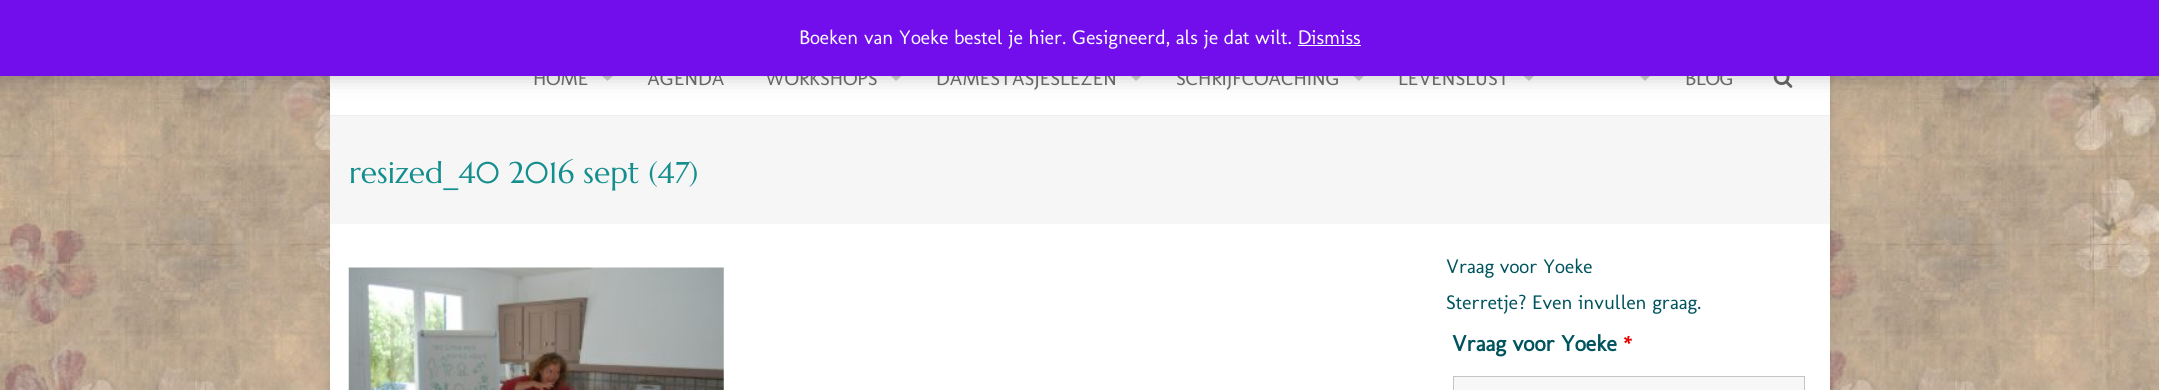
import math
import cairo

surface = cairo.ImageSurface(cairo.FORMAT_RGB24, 2159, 390)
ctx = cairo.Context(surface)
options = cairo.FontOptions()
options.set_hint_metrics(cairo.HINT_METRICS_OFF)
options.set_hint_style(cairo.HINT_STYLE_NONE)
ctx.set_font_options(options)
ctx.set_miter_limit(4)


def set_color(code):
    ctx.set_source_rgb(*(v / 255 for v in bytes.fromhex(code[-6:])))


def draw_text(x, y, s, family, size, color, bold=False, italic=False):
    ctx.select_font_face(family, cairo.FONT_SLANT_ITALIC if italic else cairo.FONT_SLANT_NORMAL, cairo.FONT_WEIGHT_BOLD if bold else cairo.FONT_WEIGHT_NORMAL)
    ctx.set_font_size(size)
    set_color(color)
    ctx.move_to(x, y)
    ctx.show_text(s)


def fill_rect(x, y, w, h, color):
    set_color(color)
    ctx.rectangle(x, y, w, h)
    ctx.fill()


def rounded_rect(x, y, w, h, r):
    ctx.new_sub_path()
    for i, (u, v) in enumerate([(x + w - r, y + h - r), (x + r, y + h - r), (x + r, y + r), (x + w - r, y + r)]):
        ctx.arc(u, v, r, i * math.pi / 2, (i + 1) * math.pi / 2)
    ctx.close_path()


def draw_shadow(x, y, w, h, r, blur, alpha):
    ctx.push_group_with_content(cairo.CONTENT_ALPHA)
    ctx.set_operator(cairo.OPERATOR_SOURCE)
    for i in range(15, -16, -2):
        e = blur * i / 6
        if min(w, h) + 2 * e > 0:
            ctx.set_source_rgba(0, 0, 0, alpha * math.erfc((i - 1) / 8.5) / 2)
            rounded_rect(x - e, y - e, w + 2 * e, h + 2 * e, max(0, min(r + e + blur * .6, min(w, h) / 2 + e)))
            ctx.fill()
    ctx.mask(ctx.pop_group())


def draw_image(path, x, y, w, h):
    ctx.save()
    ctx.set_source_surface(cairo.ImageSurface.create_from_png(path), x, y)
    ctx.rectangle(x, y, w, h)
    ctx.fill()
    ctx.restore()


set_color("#ffffff")
ctx.paint()
draw_image("assets/img1.png", 0, 76, 2159, 314)
set_color("#000000")
draw_shadow(330, 0, 1500, 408, 0, 6, 0.1)
fill_rect(330, 76, 1500, 314, "#ffffff")
set_color("#cccccc")
ctx.new_path()
ctx.move_to(601, 75)
ctx.line_to(614, 75)
ctx.line_to(607.5, 81)
ctx.close_path()
ctx.fill()
ctx.new_path()
ctx.move_to(890, 75)
ctx.line_to(902.5, 75)
ctx.line_to(896, 81)
ctx.close_path()
ctx.fill()
ctx.new_path()
ctx.move_to(1130, 75)
ctx.line_to(1142.5, 75)
ctx.line_to(1136, 81)
ctx.close_path()
ctx.fill()
ctx.new_path()
ctx.move_to(1352.5, 75)
ctx.line_to(1365, 75)
ctx.line_to(1359, 81)
ctx.close_path()
ctx.fill()
ctx.new_path()
ctx.move_to(1522.5, 75)
ctx.line_to(1535, 75)
ctx.line_to(1529, 81)
ctx.close_path()
ctx.fill()
ctx.new_path()
ctx.move_to(1639, 75)
ctx.line_to(1651, 75)
ctx.line_to(1645, 81)
ctx.close_path()
ctx.fill()
draw_image("assets/img2.png", 1773, 76, 20, 12)
set_color("#000000")
draw_shadow(0, 1, 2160, 77, 0, 10, 0.2)
draw_text(533, 85, "HOME", "Molengo", 20, "#666666")
draw_text(647, 85, "AGENDA", "Molengo", 20, "#666666")
draw_text(765, 85, "WORKSHOPS", "Molengo", 20, "#666666")
draw_text(936, 85, "DAMESTASJESLEZEN", "Molengo", 20, "#666666")
draw_text(1176, 85, "SCHRIJFCOACHING", "Molengo", 20, "#666666")
draw_text(1398, 85, "LEVENSLUST", "Molengo", 20, "#666666")
draw_text(1685, 85, "BLOG", "Molengo", 20, "#666666")
fill_rect(0, 0, 2159, 76, "#720eec")
draw_text(799, 44, "Boeken van Yoeke bestel je hier. Gesigneerd, als je dat wilt. Dismiss", "Molengo", 20, "#fcfbfe")
fill_rect(1298, 45, 63, 1, "#fcfbfe")
fill_rect(330, 115, 1500, 1, "#eeeeee")
fill_rect(330, 116, 1500, 108, "#f6f6f6")
draw_text(349, 183, "resized_40 2016 sept (47)", "Marcellus", 30, "#158e8e")
draw_image("assets/img3.png", 348, 267, 376, 123)
draw_text(1446, 273, "Vraag voor Yoeke", "Molengo", 20, "#00545e")
draw_text(1446, 309, "Sterretje? Even invullen graag.", "Molengo", 20, "#00545e")
draw_text(1452, 351, "Vraag voor Yoeke", "Molengo", 22.5, "#00545e", bold=True)
draw_text(1623, 351, "*", "Molengo", 22.5, "#e80000", bold=True)
set_color("#f7f7f7")
ctx.rectangle(1453.5, 376.5, 351, 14)
ctx.fill_preserve()
set_color("#c4c4c4")
ctx.set_line_width(1)
ctx.stroke()
surface.write_to_png("output.png")
